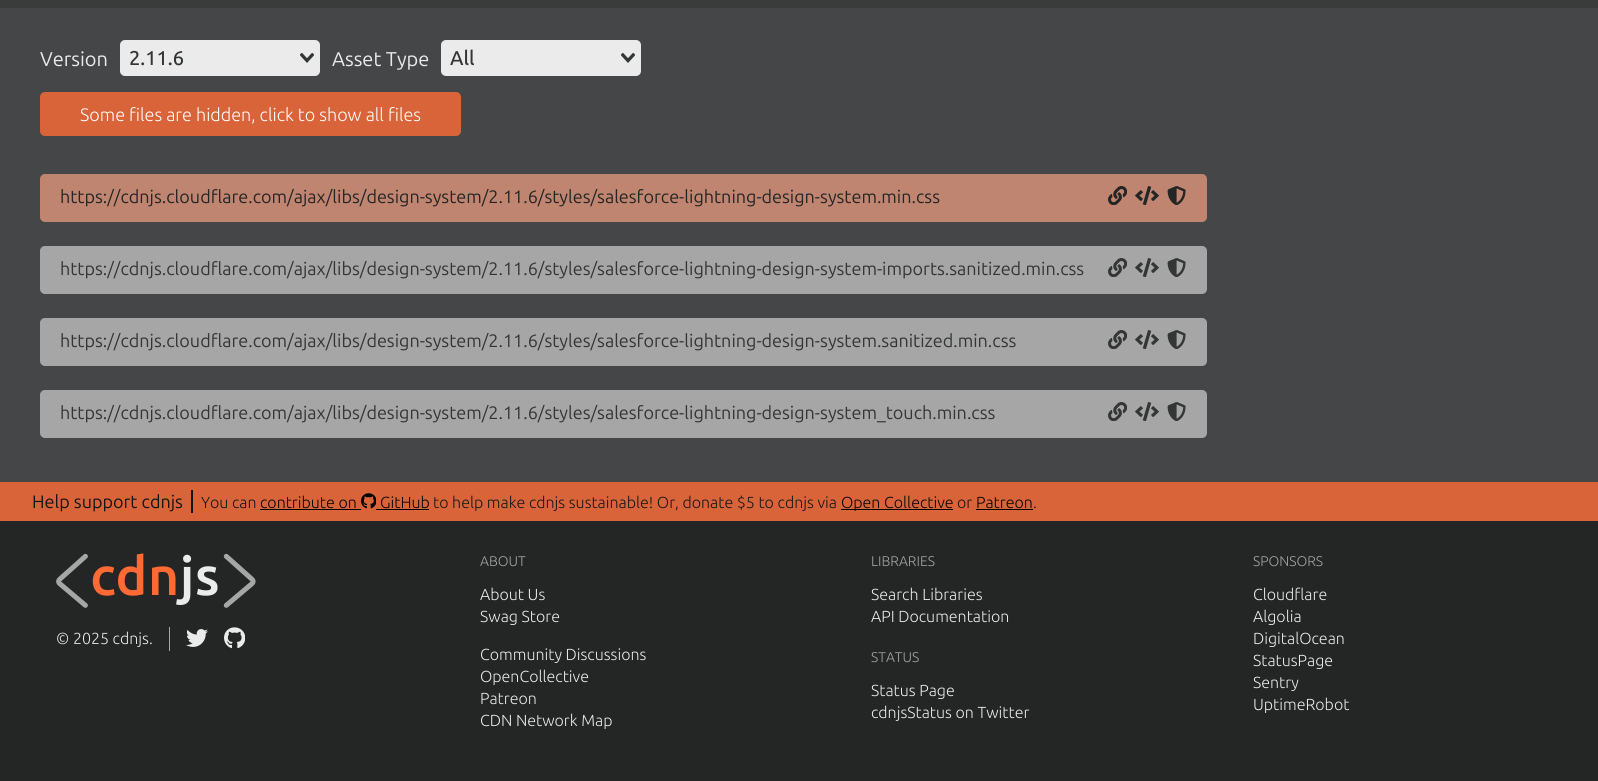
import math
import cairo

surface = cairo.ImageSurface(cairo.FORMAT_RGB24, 1598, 781)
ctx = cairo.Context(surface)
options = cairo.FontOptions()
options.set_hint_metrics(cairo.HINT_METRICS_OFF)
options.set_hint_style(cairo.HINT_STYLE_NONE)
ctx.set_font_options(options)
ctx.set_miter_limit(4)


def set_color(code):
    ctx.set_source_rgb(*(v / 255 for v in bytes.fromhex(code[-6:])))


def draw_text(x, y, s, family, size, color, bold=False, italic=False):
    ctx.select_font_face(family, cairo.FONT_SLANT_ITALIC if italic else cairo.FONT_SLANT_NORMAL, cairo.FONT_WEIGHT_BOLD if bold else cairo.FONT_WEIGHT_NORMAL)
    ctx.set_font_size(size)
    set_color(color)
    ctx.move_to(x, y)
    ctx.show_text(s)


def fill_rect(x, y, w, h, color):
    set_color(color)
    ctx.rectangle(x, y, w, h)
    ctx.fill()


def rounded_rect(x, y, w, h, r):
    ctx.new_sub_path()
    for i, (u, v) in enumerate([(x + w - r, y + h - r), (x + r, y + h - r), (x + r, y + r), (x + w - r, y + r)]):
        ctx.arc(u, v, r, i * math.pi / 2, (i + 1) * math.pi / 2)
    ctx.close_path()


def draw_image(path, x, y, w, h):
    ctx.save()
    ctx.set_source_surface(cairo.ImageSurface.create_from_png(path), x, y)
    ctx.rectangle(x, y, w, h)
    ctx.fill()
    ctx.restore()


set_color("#454647")
ctx.paint()
fill_rect(0, 0, 1598, 8, "#3a3c3c")
draw_text(40, 66, "Version", "Ubuntu", 20, "#ebebeb")
rounded_rect(120, 40, 200, 36, 5)
ctx.fill()
draw_text(129, 65, "2.11.6", "Ubuntu Medium", 20, "#343535")
draw_image("assets/img1.png", 300, 53, 14, 10)
draw_text(332, 66, "Asset Type", "Ubuntu", 20, "#ebebeb")
rounded_rect(441, 40, 200, 36, 5)
ctx.fill()
draw_text(450, 65, "All", "Ubuntu Medium", 20, "#343535")
draw_image("assets/img1.png", 621, 53, 14, 10)
set_color("#d9643a")
rounded_rect(40, 92, 421, 44, 5)
ctx.fill()
draw_text(80, 121, "Some files are hidden, click to show all files", "Ubuntu Light", 18, "#ffffff")
set_color("#c08570")
rounded_rect(40, 174, 1167, 48, 5)
ctx.fill()
draw_text(60, 203, "https://cdnjs.cloudflare.com/ajax/libs/design-system/2.11.6/styles/salesforce-lightning-design-system.min.css", "Ubuntu", 18, "#242525")
draw_image("assets/img2.png", 1108, 186, 19, 19)
draw_image("assets/img3.png", 1135, 186, 24, 19)
draw_image("assets/img4.png", 1167, 186, 19, 19)
set_color("#a6a6a6")
rounded_rect(40, 246, 1167, 48, 5)
ctx.fill()
draw_text(60, 275, "https://cdnjs.cloudflare.com/ajax/libs/design-system/2.11.6/styles/salesforce-lightning-design-system-imports.sanitized.min.css", "Ubuntu", 18, "#343535")
draw_image("assets/img5.png", 1108, 258, 19, 19)
draw_image("assets/img6.png", 1135, 258, 24, 19)
draw_image("assets/img7.png", 1167, 258, 19, 19)
set_color("#a6a6a6")
rounded_rect(40, 318, 1167, 48, 5)
ctx.fill()
draw_text(60, 347, "https://cdnjs.cloudflare.com/ajax/libs/design-system/2.11.6/styles/salesforce-lightning-design-system.sanitized.min.css", "Ubuntu", 18, "#343535")
draw_image("assets/img5.png", 1108, 330, 19, 19)
draw_image("assets/img6.png", 1135, 330, 24, 19)
draw_image("assets/img7.png", 1167, 330, 19, 19)
set_color("#a6a6a6")
rounded_rect(40, 390, 1167, 48, 5)
ctx.fill()
draw_text(60, 419, "https://cdnjs.cloudflare.com/ajax/libs/design-system/2.11.6/styles/salesforce-lightning-design-system_touch.min.css", "Ubuntu", 18, "#343535")
draw_image("assets/img5.png", 1108, 402, 19, 19)
draw_image("assets/img6.png", 1135, 402, 24, 19)
draw_image("assets/img7.png", 1167, 402, 19, 19)
fill_rect(0, 482, 1598, 39, "#d9643a")
fill_rect(191, 490, 2, 23, "#141515")
draw_text(32, 508, "Help support cdnjs", "Ubuntu", 18, "#141515")
draw_text(201, 508, "You can", "Ubuntu Light", 16, "#141515")
draw_text(260, 508, "contribute on", "Ubuntu Light", 16, "#030303")
fill_rect(260, 509, 101, 1, "#030303")
draw_image("assets/img8.png", 361, 493, 15, 16)
draw_text(380, 508, "GitHub", "Ubuntu Light", 16, "#030303")
fill_rect(376, 509, 53, 1, "#030303")
draw_text(433, 508, "to help make cdnjs sustainable! Or, donate $5 to cdnjs via", "Ubuntu Light", 16, "#141515")
fill_rect(841, 509, 112, 1, "#030303")
draw_text(841, 508, "Open Collective", "Ubuntu Light", 16, "#030303")
draw_text(957, 508, "or", "Ubuntu Light", 16, "#141515")
draw_text(976, 508, "Patreon", "Ubuntu Light", 16, "#030303")
fill_rect(976, 509, 57, 1, "#030303")
draw_text(1033, 508, ".", "Ubuntu Light", 16, "#141515")
fill_rect(0, 521, 1598, 260, "#242525")
draw_image("assets/img9.png", 56, 553, 200, 55)
fill_rect(169, 627, 1, 24, "#a6a6a6")
draw_text(56, 644, "© 2025 cdnjs.", "Ubuntu Light", 16, "#ebebeb")
draw_image("assets/img10.png", 186, 629, 22, 18)
draw_image("assets/img11.png", 224, 627, 21, 22)
draw_text(480, 566, "ABOUT", "Ubuntu Light", 14, "#a6a6a6")
draw_text(480, 600, "About Us", "Ubuntu Light", 16, "#ebebeb")
draw_text(480, 622, "Swag Store", "Ubuntu Light", 16, "#ebebeb")
draw_text(480, 660, "Community Discussions", "Ubuntu Light", 16, "#ebebeb")
draw_text(480, 682, "OpenCollective", "Ubuntu Light", 16, "#ebebeb")
draw_text(480, 704, "Patreon", "Ubuntu Light", 16, "#ebebeb")
draw_text(480, 726, "CDN Network Map", "Ubuntu Light", 16, "#ebebeb")
draw_text(871, 566, "LIBRARIES", "Ubuntu Light", 14, "#a6a6a6")
draw_text(871, 600, "Search Libraries", "Ubuntu Light", 16, "#ebebeb")
draw_text(871, 622, "API Documentation", "Ubuntu Light", 16, "#ebebeb")
draw_text(871, 662, "STATUS", "Ubuntu Light", 14, "#a6a6a6")
draw_text(871, 696, "Status Page", "Ubuntu Light", 16, "#ebebeb")
draw_text(871, 718, "cdnjsStatus on Twitter", "Ubuntu Light", 16, "#ebebeb")
draw_text(1253, 566, "SPONSORS", "Ubuntu Light", 14, "#a6a6a6")
draw_text(1253, 600, "Cloudflare", "Ubuntu Light", 16, "#ebebeb")
draw_text(1253, 622, "Algolia", "Ubuntu Light", 16, "#ebebeb")
draw_text(1253, 644, "DigitalOcean", "Ubuntu Light", 16, "#ebebeb")
draw_text(1253, 666, "StatusPage", "Ubuntu Light", 16, "#ebebeb")
draw_text(1253, 688, "Sentry", "Ubuntu Light", 16, "#ebebeb")
draw_text(1253, 710, "UptimeRobot", "Ubuntu Light", 16, "#ebebeb")
surface.write_to_png("output.png")
